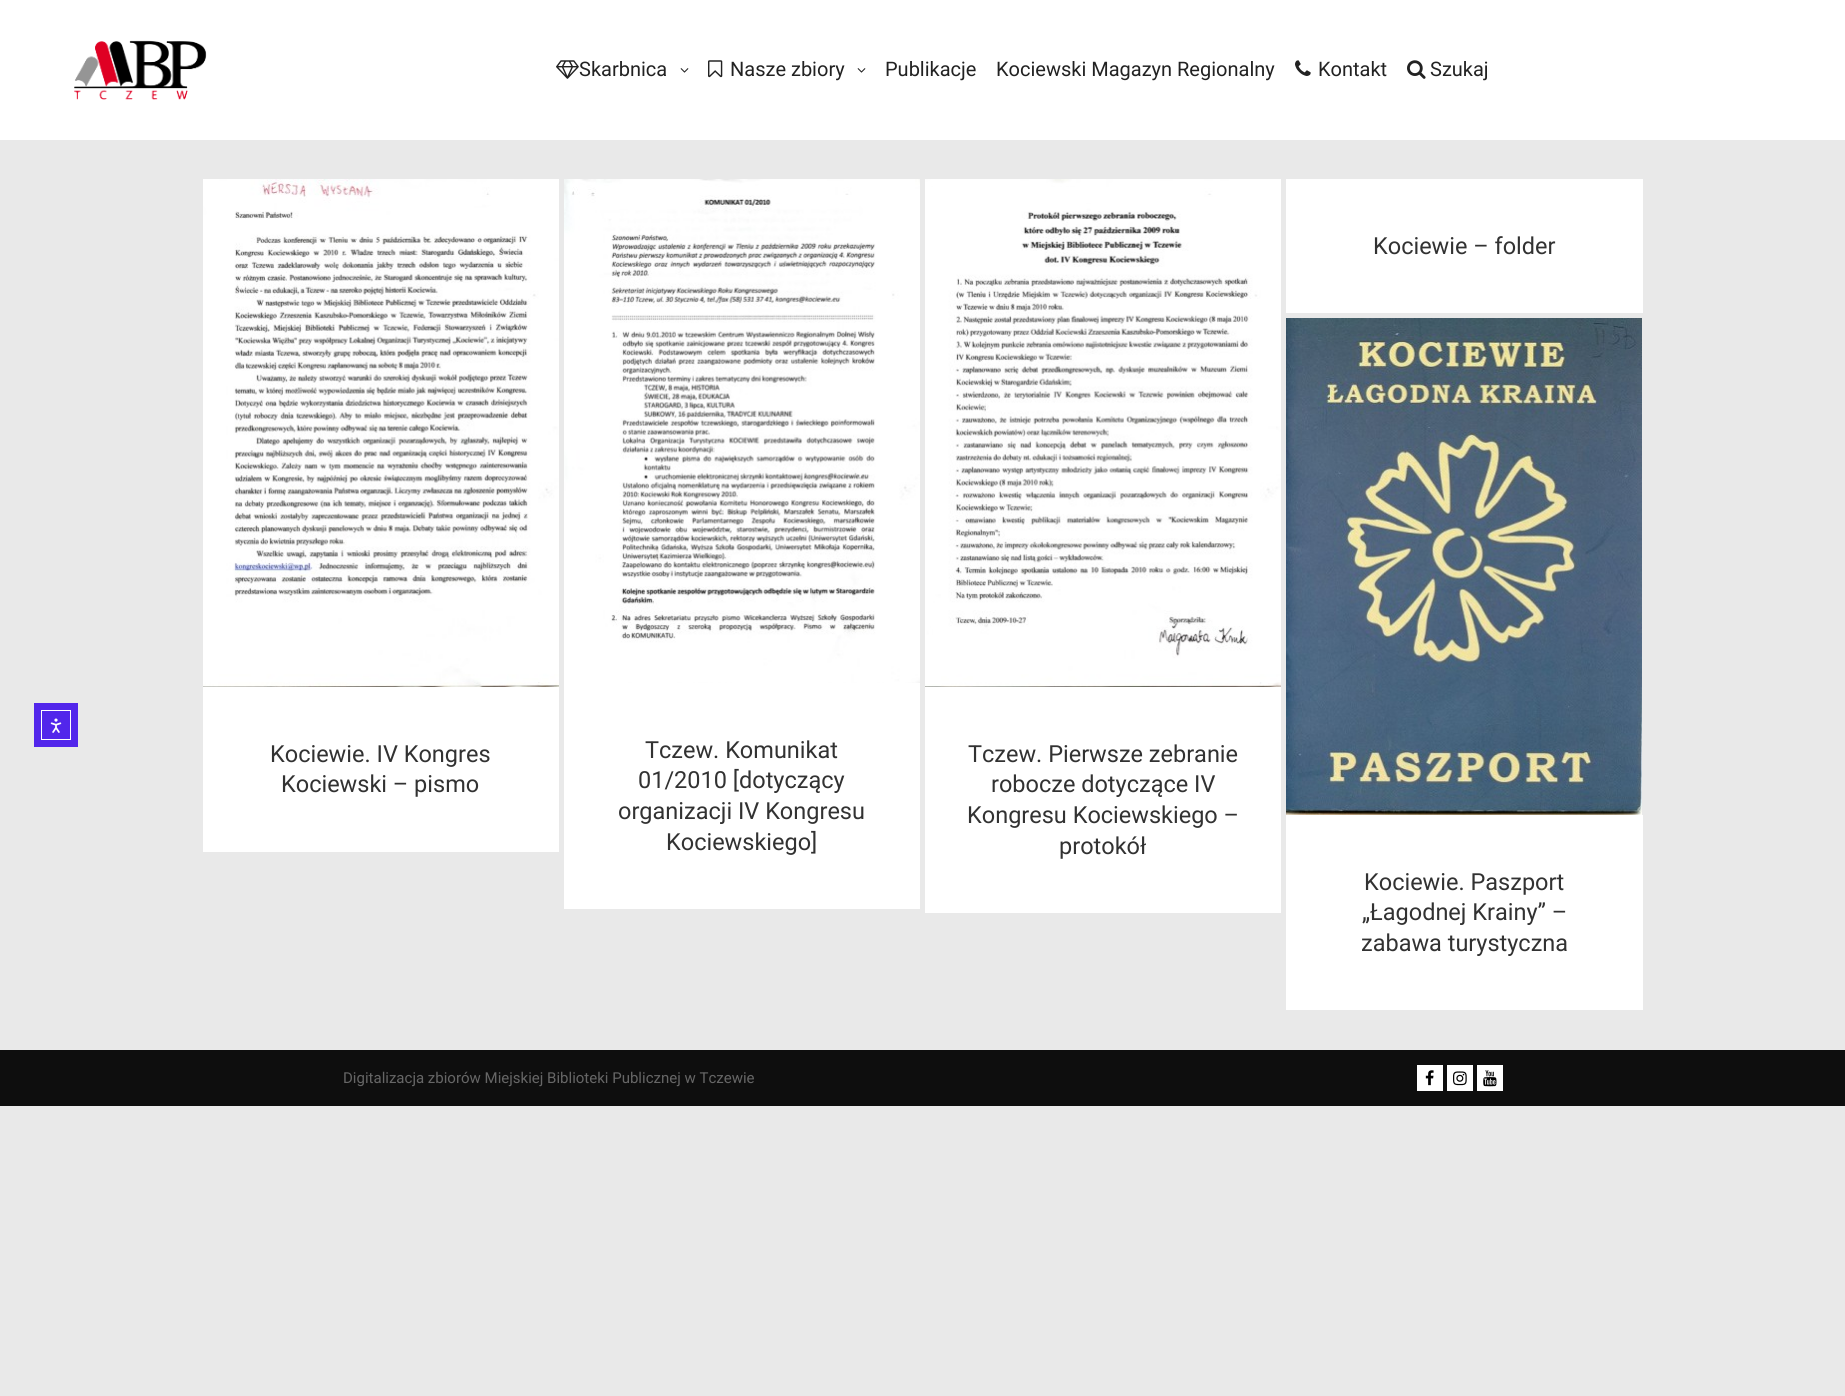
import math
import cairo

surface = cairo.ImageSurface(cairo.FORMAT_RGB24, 1845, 1396)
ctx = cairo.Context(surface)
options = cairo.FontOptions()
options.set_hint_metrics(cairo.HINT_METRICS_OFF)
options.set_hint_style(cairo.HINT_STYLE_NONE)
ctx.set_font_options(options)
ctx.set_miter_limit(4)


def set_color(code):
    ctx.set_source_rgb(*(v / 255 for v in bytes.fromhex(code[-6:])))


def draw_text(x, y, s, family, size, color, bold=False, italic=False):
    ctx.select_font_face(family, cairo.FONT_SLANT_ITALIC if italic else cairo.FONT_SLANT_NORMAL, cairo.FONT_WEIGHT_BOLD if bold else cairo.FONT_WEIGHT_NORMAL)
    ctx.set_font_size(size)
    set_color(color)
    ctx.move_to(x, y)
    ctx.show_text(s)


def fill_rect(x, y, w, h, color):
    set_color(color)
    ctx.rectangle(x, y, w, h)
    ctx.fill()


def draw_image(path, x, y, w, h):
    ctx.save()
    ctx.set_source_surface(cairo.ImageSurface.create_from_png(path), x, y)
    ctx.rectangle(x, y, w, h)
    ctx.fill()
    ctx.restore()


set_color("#e9e9e9")
ctx.paint()
fill_rect(34, 703, 44, 44, "#5226eb")
ctx.rectangle(41.5, 710.5, 29, 29)
set_color("#ffffff")
ctx.set_line_width(1)
ctx.stroke()
draw_image("assets/img1.png", 50, 718, 12, 15)
fill_rect(0, 0, 1845, 140, "#ffffff")
draw_image("assets/img2.png", 74, 40, 133, 60)
draw_image("assets/img3.png", 556, 60, 23, 19)
draw_text(579, 76, "Skarbnica", "Roboto", 20, "#222222")
draw_image("assets/img4.png", 680, 68, 9, 5)
draw_image("assets/img5.png", 708, 60, 15, 18)
draw_text(730, 76, "Nasze zbiory", "Roboto", 20, "#222222")
draw_image("assets/img4.png", 857, 68, 9, 5)
draw_text(885, 76, "Publikacje", "Roboto", 20, "#222222")
draw_text(996, 76, "Kociewski Magazyn Regionalny", "Roboto", 20, "#222222")
draw_image("assets/img6.png", 1295, 60, 16, 16)
draw_text(1318, 76, "Kontakt", "Roboto", 20, "#222222")
draw_image("assets/img7.png", 1407, 60, 19, 19)
draw_text(1430, 76, "Szukaj", "Roboto", 20, "#222222")
fill_rect(1286, 179, 357, 134, "#ffffff")
draw_text(1373, 254, "Kociewie – folder", "Roboto", 23.5, "#323232")
draw_image("assets/img8.png", 203, 179, 356, 508)
fill_rect(203, 687, 356, 165, "#ffffff")
draw_text(270, 762, "Kociewie. IV Kongres", "Roboto", 23.5, "#323232")
draw_text(281, 792, "Kociewski – pismo", "Roboto", 23.5, "#323232")
draw_image("assets/img9.png", 564, 179, 356, 504)
fill_rect(564, 683, 356, 226, "#ffffff")
draw_text(645, 758, "Tczew. Komunikat", "Roboto", 23.5, "#323232")
draw_text(638, 788, "01/2010 [dotyczący", "Roboto", 23.5, "#323232")
draw_text(618, 819, "organizacji IV Kongresu", "Roboto", 23.5, "#323232")
draw_text(666, 850, "Kociewskiego]", "Roboto", 23.5, "#323232")
draw_image("assets/img10.png", 925, 179, 356, 508)
fill_rect(925, 687, 356, 226, "#ffffff")
draw_text(968, 762, "Tczew. Pierwsze zebranie", "Roboto", 23.5, "#323232")
draw_text(991, 792, "robocze dotyczące IV", "Roboto", 23.5, "#323232")
draw_text(967, 823, "Kongresu Kociewskiego –", "Roboto", 23.5, "#323232")
draw_text(1059, 854, "protokół", "Roboto", 23.5, "#323232")
draw_image("assets/img11.png", 1286, 318, 356, 497)
fill_rect(1286, 815, 357, 195, "#ffffff")
draw_text(1364, 890, "Kociewie. Paszport", "Roboto", 23.5, "#323232")
draw_text(1362, 920, "„Łagodnej Krainy” –", "Roboto", 23.5, "#323232")
draw_text(1361, 951, "zabawa turystyczna", "Roboto", 23.5, "#323232")
fill_rect(0, 1050, 1845, 56, "#0e0e0e")
draw_text(343, 1083, "Digitalizacja zbiorów Miejskiej Biblioteki Publicznej w Tczewie", "Roboto", 15, "#666666")
fill_rect(1417, 1065, 26, 26, "#ffffff")
draw_image("assets/img12.png", 1425, 1070, 9, 16)
fill_rect(1447, 1065, 26, 26, "#ffffff")
draw_image("assets/img13.png", 1453, 1071, 14, 15)
fill_rect(1477, 1065, 26, 26, "#ffffff")
draw_image("assets/img14.png", 1483, 1070, 14, 17)
surface.write_to_png("output.png")
